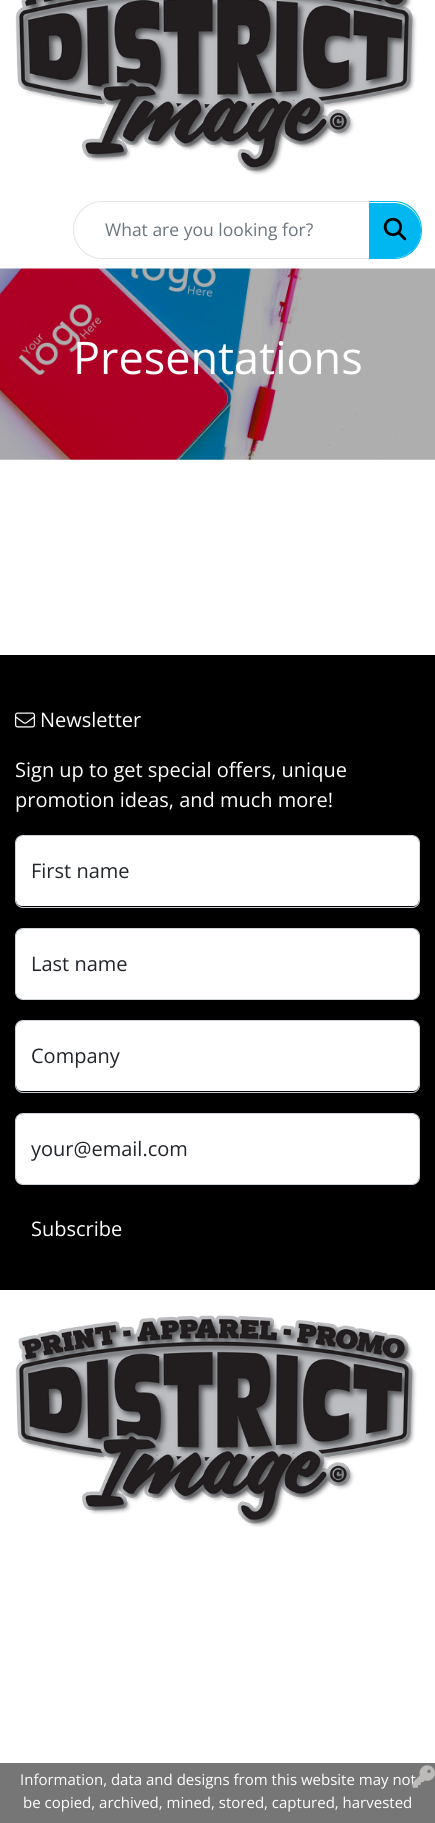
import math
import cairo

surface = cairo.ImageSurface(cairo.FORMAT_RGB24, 435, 1823)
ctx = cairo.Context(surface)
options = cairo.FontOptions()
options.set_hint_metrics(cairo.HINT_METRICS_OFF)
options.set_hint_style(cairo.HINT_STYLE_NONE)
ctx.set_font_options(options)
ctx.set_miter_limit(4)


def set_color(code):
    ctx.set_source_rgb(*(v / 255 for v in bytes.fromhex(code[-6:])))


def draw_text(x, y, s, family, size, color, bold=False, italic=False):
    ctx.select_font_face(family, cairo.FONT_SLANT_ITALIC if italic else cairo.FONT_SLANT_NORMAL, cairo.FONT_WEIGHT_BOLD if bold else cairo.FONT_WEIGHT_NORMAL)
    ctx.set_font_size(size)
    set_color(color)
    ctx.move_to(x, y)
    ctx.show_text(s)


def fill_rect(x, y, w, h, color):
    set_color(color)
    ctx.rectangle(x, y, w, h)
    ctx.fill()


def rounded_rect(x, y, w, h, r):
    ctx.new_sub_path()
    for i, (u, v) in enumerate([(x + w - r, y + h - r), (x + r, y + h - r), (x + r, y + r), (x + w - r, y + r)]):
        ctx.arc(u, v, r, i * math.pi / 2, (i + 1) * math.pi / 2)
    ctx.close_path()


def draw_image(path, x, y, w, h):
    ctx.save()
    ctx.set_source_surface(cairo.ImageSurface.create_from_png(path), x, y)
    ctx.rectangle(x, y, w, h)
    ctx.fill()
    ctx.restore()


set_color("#ffffff")
ctx.paint()
draw_image("assets/img1.png", 15, 0, 402, 175)
ctx.new_path()
ctx.move_to(102, 201.5)
ctx.line_to(369.5, 201.5)
ctx.line_to(369.5, 258.5)
ctx.line_to(102, 258.5)
ctx.curve_to(86.5, 258.5, 73.5, 245.5, 73.5, 230)
ctx.curve_to(73.5, 214.5, 86.5, 201.5, 102, 201.5)
ctx.close_path()
set_color("#e4e4e4")
ctx.set_line_width(1)
ctx.stroke()
draw_text(105, 236, "What are you looking for?", "Open Sans", 17.5, "#6c757d")
set_color("#00b7f1")
ctx.new_path()
ctx.move_to(369, 203)
ctx.line_to(393.5, 203)
ctx.curve_to(408.5, 203, 421, 215.5, 421, 230.5)
ctx.curve_to(421, 245.5, 408.5, 258, 393.5, 258)
ctx.line_to(369, 258)
ctx.close_path()
ctx.fill()
ctx.set_fill_rule(cairo.FILL_RULE_EVEN_ODD)
ctx.new_path()
ctx.move_to(369, 201)
ctx.line_to(394, 201)
ctx.curve_to(410, 201, 422, 214, 422, 230)
ctx.curve_to(422, 246, 410, 259, 394, 259)
ctx.line_to(369, 259)
ctx.close_path()
ctx.move_to(369, 202)
ctx.line_to(394, 202)
ctx.curve_to(409, 202, 421, 215, 421, 230)
ctx.curve_to(421, 245, 409, 258, 394, 258)
ctx.line_to(369, 258)
ctx.close_path()
ctx.fill()
draw_image("assets/img2.png", 383, 217, 24, 24)
draw_image("assets/img3.png", 0, 268, 435, 192)
draw_text(73, 374, "Presentations", "Open Sans", 45, "#ffffff")
fill_rect(0, 655, 435, 635, "#000000")
draw_image("assets/img4.png", 15, 712, 20, 16)
draw_text(40, 727, "Newsletter", "Open Sans", 20, "#ffffff")
draw_text(15, 777, "Sign up to get special offers, unique", "Open Sans", 20, "#ffffff")
draw_text(15, 807, "promotion ideas, and much more!", "Open Sans", 20, "#ffffff")
rounded_rect(16, 836, 403, 70, 6)
ctx.fill()
rounded_rect(15.5, 835.5, 404, 72, 7.5)
set_color("#ced4da")
ctx.stroke()
draw_text(31, 878, "First name", "Open Sans", 20, "#212529")
set_color("#ffffff")
rounded_rect(16, 929, 403, 70, 6)
ctx.fill()
rounded_rect(15.5, 928.5, 404, 71, 7.5)
set_color("#ced4da")
ctx.stroke()
draw_text(31, 971, "Last name", "Open Sans", 20, "#212529")
set_color("#ffffff")
rounded_rect(16, 1021, 403, 70, 6)
ctx.fill()
rounded_rect(15.5, 1020.5, 404, 72, 7.5)
set_color("#ced4da")
ctx.stroke()
draw_text(31, 1063, "Company", "Open Sans", 20, "#212529")
set_color("#ffffff")
rounded_rect(16, 1114, 403, 70, 6)
ctx.fill()
rounded_rect(15.5, 1113.5, 404, 71, 7.5)
set_color("#ced4da")
ctx.stroke()
draw_text(31, 1156, "your@email.com", "Open Sans", 20, "#212529")
draw_text(31, 1236, "Subscribe", "Open Sans", 20, "#ffffff")
draw_image("assets/img5.png", 15, 1315, 402, 212)
fill_rect(0, 1763, 435, 60, "#777676")
draw_text(20, 1785, "Information, data and designs from this website may not", "Open Sans", 15, "#ffffff")
draw_text(23, 1808, "be copied, archived, mined, stored, captured, harvested", "Open Sans", 15, "#ffffff")
draw_image("assets/img6.png", 412, 1765, 23, 23)
surface.write_to_png("output.png")
